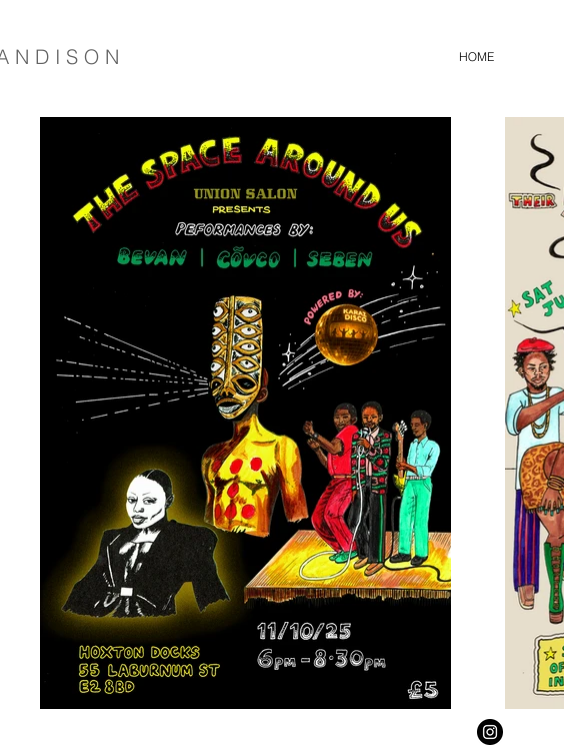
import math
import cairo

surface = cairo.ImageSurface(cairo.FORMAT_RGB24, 564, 755)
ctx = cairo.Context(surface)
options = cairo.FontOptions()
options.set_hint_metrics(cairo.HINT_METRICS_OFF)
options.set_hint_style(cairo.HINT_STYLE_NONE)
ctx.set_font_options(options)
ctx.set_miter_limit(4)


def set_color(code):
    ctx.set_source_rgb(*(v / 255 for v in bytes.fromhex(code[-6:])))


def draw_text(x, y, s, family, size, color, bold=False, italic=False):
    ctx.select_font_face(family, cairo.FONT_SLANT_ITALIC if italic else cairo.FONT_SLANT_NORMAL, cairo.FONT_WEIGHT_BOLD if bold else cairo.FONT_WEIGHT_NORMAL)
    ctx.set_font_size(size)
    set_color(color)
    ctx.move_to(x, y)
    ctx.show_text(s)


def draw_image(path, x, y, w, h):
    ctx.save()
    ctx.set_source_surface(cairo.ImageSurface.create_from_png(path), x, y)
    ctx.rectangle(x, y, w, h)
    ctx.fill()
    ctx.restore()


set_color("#ffffff")
ctx.paint()
draw_text(-4, 64, "A N D I S O N", "helvetica Light", 20, "#636363")
draw_text(459, 61, "HOME", "helvetica Light", 12, "#000000")
draw_image("assets/img1.png", 40, 117, 411, 592)
draw_image("assets/img2.png", 505, 117, 59, 592)
draw_image("assets/img3.png", 477, 719, 26, 26)
surface.write_to_png("output.png")
